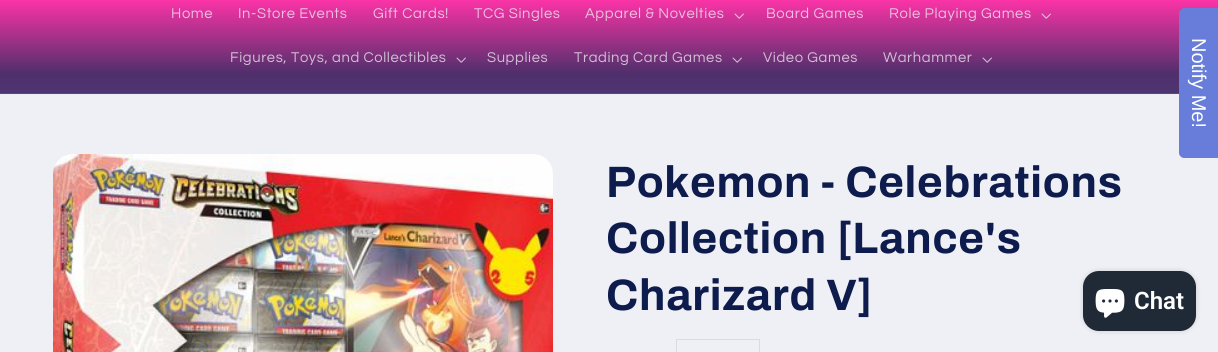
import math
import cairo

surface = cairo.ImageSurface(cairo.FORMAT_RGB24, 1218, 352)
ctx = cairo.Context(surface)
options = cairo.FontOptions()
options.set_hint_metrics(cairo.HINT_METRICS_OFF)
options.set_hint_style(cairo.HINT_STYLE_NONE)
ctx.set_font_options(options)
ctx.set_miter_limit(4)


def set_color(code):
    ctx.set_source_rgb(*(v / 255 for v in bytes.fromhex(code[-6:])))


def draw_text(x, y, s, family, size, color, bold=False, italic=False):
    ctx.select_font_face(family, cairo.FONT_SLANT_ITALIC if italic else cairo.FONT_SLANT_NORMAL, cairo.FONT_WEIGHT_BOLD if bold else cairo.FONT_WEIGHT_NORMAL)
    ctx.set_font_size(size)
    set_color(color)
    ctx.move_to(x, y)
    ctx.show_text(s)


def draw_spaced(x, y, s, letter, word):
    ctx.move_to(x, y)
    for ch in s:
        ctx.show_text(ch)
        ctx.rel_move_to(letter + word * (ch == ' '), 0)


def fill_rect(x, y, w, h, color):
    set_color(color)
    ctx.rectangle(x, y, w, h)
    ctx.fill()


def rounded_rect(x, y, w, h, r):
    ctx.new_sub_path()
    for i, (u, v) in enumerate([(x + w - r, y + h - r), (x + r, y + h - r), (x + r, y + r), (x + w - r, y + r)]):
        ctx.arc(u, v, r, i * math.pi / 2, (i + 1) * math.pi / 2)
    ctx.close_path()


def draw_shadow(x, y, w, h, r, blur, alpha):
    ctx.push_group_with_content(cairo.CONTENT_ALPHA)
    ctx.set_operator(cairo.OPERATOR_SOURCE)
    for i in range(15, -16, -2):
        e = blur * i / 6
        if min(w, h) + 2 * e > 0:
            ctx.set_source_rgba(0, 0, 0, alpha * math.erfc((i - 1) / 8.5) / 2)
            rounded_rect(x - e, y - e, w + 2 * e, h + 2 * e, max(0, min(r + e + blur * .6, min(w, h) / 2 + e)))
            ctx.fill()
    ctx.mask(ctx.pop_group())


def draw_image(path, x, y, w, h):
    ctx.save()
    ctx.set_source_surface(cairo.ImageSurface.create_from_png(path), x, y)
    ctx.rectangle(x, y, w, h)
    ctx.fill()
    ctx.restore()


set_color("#eff0f5")
ctx.paint()
gradient = cairo.LinearGradient(609, 0, 609, 352)
gradient.add_color_stop_rgba(0, 0.984, 0.2, 0.651, 1)
gradient.add_color_stop_rgba(0.21, 0.31, 0.184, 0.42, 1)
gradient.add_color_stop_rgba(1, 0.188, 0.569, 0.827, 1)
ctx.set_source(gradient)
ctx.rectangle(0, 0, 1218, 93)
ctx.fill()
fill_rect(0, 93, 1179, 1, "#5a457c")
ctx.select_font_face("Questrial")
ctx.set_font_size(14.75)
set_color("#eac1df")
draw_spaced(171, 18, "Home", 0.6, 0)
draw_spaced(238, 18, "In-Store Events", 0.6, 0)
draw_spaced(373, 18, "Gift Cards!", 0.6, 0)
draw_spaced(474, 18, "TCG Singles", 0.6, 0)
draw_spaced(585, 18, "Apparel & Novelties", 0.6, 0)
draw_image("assets/img1.png", 734, 13, 10, 6)
draw_spaced(766, 18, "Board Games", 0.6, 0)
draw_spaced(889, 18, "Role Playing Games", 0.6, 0)
draw_image("assets/img1.png", 1041, 13, 10, 6)
set_color("#d0c0d6")
draw_spaced(230, 62, "Figures, Toys, and Collectibles", 0.6, 0)
draw_image("assets/img2.png", 456, 57, 10, 6)
draw_spaced(487, 62, "Supplies", 0.6, 0)
draw_spaced(574, 62, "Trading Card Games", 0.6, 0)
draw_image("assets/img2.png", 732, 57, 10, 6)
draw_spaced(763, 62, "Video Games", 0.6, 0)
draw_spaced(883, 62, "Warhammer", 0.6, 0)
draw_image("assets/img2.png", 982, 57, 10, 6)
set_color("#677dd9")
ctx.new_path()
ctx.move_to(1218, 8)
ctx.line_to(1218, 158)
ctx.line_to(1184, 158)
ctx.curve_to(1182, 158, 1179, 156, 1179, 153)
ctx.line_to(1179, 13)
ctx.curve_to(1179, 11, 1182, 8, 1184, 8)
ctx.close_path()
ctx.fill()
ctx.save()
ctx.translate(1192, 38)
ctx.rotate(90 * math.pi / 180)
draw_text(0, 0, "Notify Me!", "Liberation Sans", 20, "#ffffff")
ctx.restore()
draw_image("assets/img3.png", 53, 154, 500, 198)
ctx.select_font_face("Archivo", cairo.FONT_SLANT_NORMAL, cairo.FONT_WEIGHT_BOLD)
ctx.set_font_size(44)
set_color("#0e1b4d")
draw_spaced(606, 197, "Pokemon - Celebrations", 0.7, 0)
draw_spaced(606, 253, "Collection [Lance's", 0.7, 0)
draw_spaced(606, 310, "Charizard V]", 0.7, 0)
ctx.rectangle(676.5, 339.5, 83, 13)
set_color("#d8dbe4")
ctx.set_line_width(1)
ctx.stroke()
set_color("#000000")
draw_shadow(1083, 271, 113, 60, 16, 2.5, 0.15)
set_color("#202a36")
rounded_rect(1083, 271, 113, 60, 16)
ctx.fill()
draw_image("assets/img4.png", 1095, 289, 30, 29)
draw_text(1134, 309, "Chat", "Roboto SemiBold", 24, "#ffffff")
surface.write_to_png("output.png")
